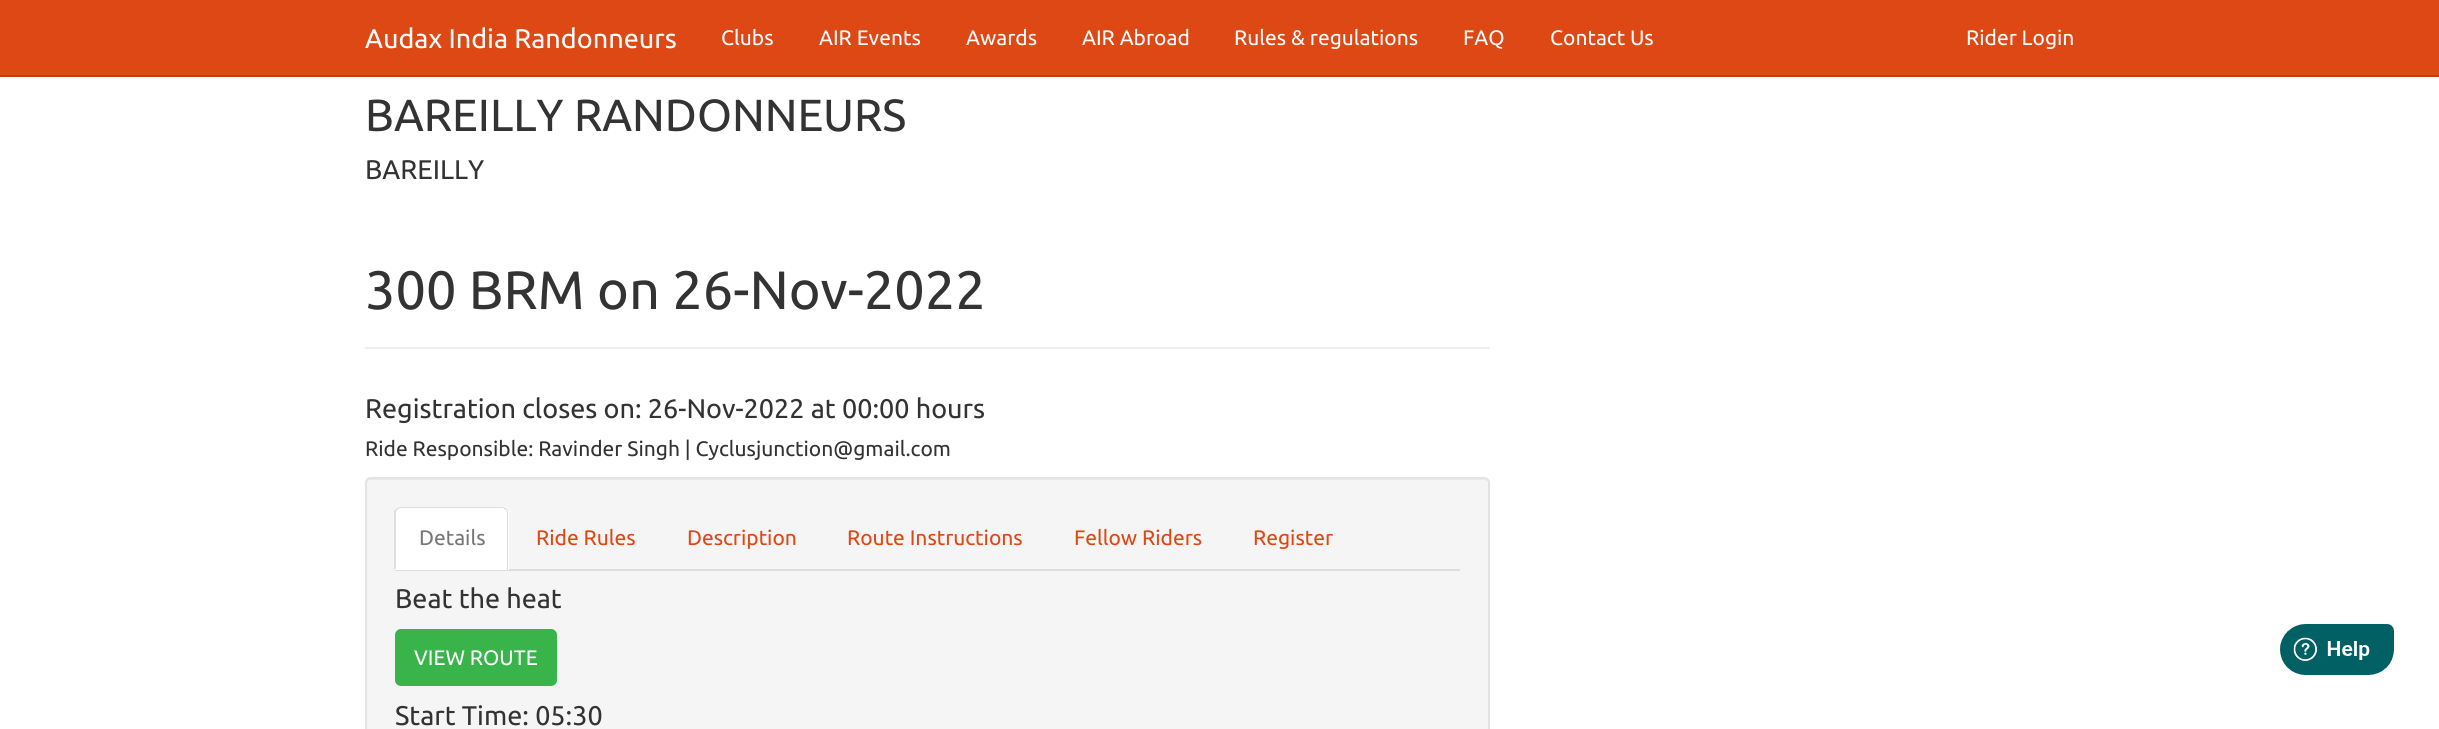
import math
import cairo

surface = cairo.ImageSurface(cairo.FORMAT_RGB24, 2439, 729)
ctx = cairo.Context(surface)
options = cairo.FontOptions()
options.set_hint_metrics(cairo.HINT_METRICS_OFF)
options.set_hint_style(cairo.HINT_STYLE_NONE)
ctx.set_font_options(options)
ctx.set_miter_limit(4)


def set_color(code):
    ctx.set_source_rgb(*(v / 255 for v in bytes.fromhex(code[-6:])))


def draw_text(x, y, s, family, size, color, bold=False, italic=False):
    ctx.select_font_face(family, cairo.FONT_SLANT_ITALIC if italic else cairo.FONT_SLANT_NORMAL, cairo.FONT_WEIGHT_BOLD if bold else cairo.FONT_WEIGHT_NORMAL)
    ctx.set_font_size(size)
    set_color(color)
    ctx.move_to(x, y)
    ctx.show_text(s)


def fill_rect(x, y, w, h, color):
    set_color(color)
    ctx.rectangle(x, y, w, h)
    ctx.fill()


def rounded_rect(x, y, w, h, r):
    ctx.new_sub_path()
    for i, (u, v) in enumerate([(x + w - r, y + h - r), (x + r, y + h - r), (x + r, y + r), (x + w - r, y + r)]):
        ctx.arc(u, v, r, i * math.pi / 2, (i + 1) * math.pi / 2)
    ctx.close_path()


def draw_image(path, x, y, w, h):
    ctx.save()
    ctx.set_source_surface(cairo.ImageSurface.create_from_png(path), x, y)
    ctx.rectangle(x, y, w, h)
    ctx.fill()
    ctx.restore()


set_color("#ffffff")
ctx.paint()
fill_rect(0, 0, 2439, 75, "#dd4814")
fill_rect(0, 75, 2439, 2, "#bf3e11")
draw_text(365, 48, "Audax India Randonneurs", "Ubuntu", 27, "#ffffff")
draw_text(721, 45, "Clubs", "Ubuntu", 21, "#ffffff")
draw_text(819, 45, "AIR Events", "Ubuntu", 21, "#ffffff")
draw_text(966, 45, "Awards", "Ubuntu", 21, "#ffffff")
draw_text(1082, 45, "AIR Abroad", "Ubuntu", 21, "#ffffff")
draw_text(1234, 45, "Rules & regulations", "Ubuntu", 21, "#ffffff")
draw_text(1463, 45, "FAQ", "Ubuntu", 21, "#ffffff")
draw_text(1550, 45, "Contact Us", "Ubuntu", 21, "#ffffff")
draw_text(1966, 45, "Rider Login", "Ubuntu", 21, "#ffffff")
draw_text(365, 131, "BAREILLY RANDONNEURS", "Ubuntu", 45, "#333333")
draw_text(365, 179, "BAREILLY", "Ubuntu", 27, "#333333")
fill_rect(365, 347, 1125, 2, "#eeeeee")
draw_text(365, 309, "300 BRM on 26-Nov-2022", "Ubuntu", 54, "#333333")
draw_text(365, 418, "Registration closes on: 26-Nov-2022 at 00:00 hours", "Ubuntu", 27, "#333333")
draw_text(365, 456, "Ride Responsible: Ravinder Singh | Cyclusjunction@gmail.com", "Ubuntu", 21, "#333333")
set_color("#f5f5f5")
rounded_rect(365, 477, 1125, 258, 6)
ctx.fill()
set_color("#e9e9e9")
ctx.new_path()
ctx.move_to(370, 480)
ctx.line_to(1484, 480)
ctx.curve_to(1486, 480, 1488, 482, 1488, 484)
ctx.curve_to(1488, 481, 1486, 479, 1483, 479)
ctx.line_to(371, 479)
ctx.curve_to(368, 479, 366, 481, 366, 484)
ctx.curve_to(366, 482, 368, 480, 370, 480)
ctx.close_path()
ctx.fill()
rounded_rect(366, 478, 1123, 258, 5)
set_color("#e3e3e3")
ctx.stroke()
fill_rect(395, 569, 1065, 2, "#dddddd")
set_color("#ffffff")
ctx.new_path()
ctx.move_to(401, 507)
ctx.line_to(503, 507)
ctx.curve_to(506.5, 507, 509, 509.5, 509, 513)
ctx.line_to(509, 570)
ctx.line_to(395, 570)
ctx.line_to(395, 513)
ctx.curve_to(395, 509.5, 397.5, 507, 401, 507)
ctx.close_path()
ctx.fill()
set_color("#dddddd")
ctx.new_path()
ctx.move_to(400, 507)
ctx.curve_to(399, 507, 397, 508, 396, 509)
ctx.line_to(397, 510)
ctx.line_to(400, 508)
ctx.line_to(503, 508)
ctx.line_to(506, 510)
ctx.line_to(507, 509)
ctx.curve_to(506, 508, 504, 507, 502, 507)
ctx.close_path()
ctx.fill()
ctx.new_path()
ctx.move_to(507, 509)
ctx.curve_to(508, 510, 508, 512, 508, 513)
ctx.line_to(508, 570)
ctx.line_to(506, 568)
ctx.line_to(507, 568)
ctx.line_to(507, 513)
ctx.curve_to(507, 512, 507, 511, 506, 510)
ctx.close_path()
ctx.fill()
ctx.new_path()
ctx.move_to(394, 570)
ctx.line_to(394, 511)
ctx.line_to(396, 509)
ctx.line_to(397, 510)
ctx.curve_to(396, 511, 396, 512, 396, 513)
ctx.line_to(396, 568)
ctx.close_path()
ctx.fill()
draw_text(419, 545, "Details", "Ubuntu", 21, "#777777")
draw_text(536, 545, "Ride Rules", "Ubuntu", 21, "#dd4814")
draw_text(687, 545, "Description", "Ubuntu", 21, "#dd4814")
draw_text(847, 545, "Route Instructions", "Ubuntu", 21, "#dd4814")
draw_text(1074, 545, "Fellow Riders", "Ubuntu", 21, "#dd4814")
draw_text(1253, 545, "Register", "Ubuntu", 21, "#dd4814")
draw_text(395, 608, "Beat the heat", "Ubuntu", 27, "#333333")
set_color("#38b44a")
rounded_rect(396, 630, 160, 55, 5)
ctx.fill_preserve()
ctx.stroke()
draw_text(414, 665, "VIEW ROUTE", "Ubuntu", 21, "#ffffff")
draw_text(395, 725, "Start Time: 05:30", "Ubuntu", 27, "#333333")
draw_image("assets/img1.png", 2280, 624, 114, 51)
surface.write_to_png("output.png")
